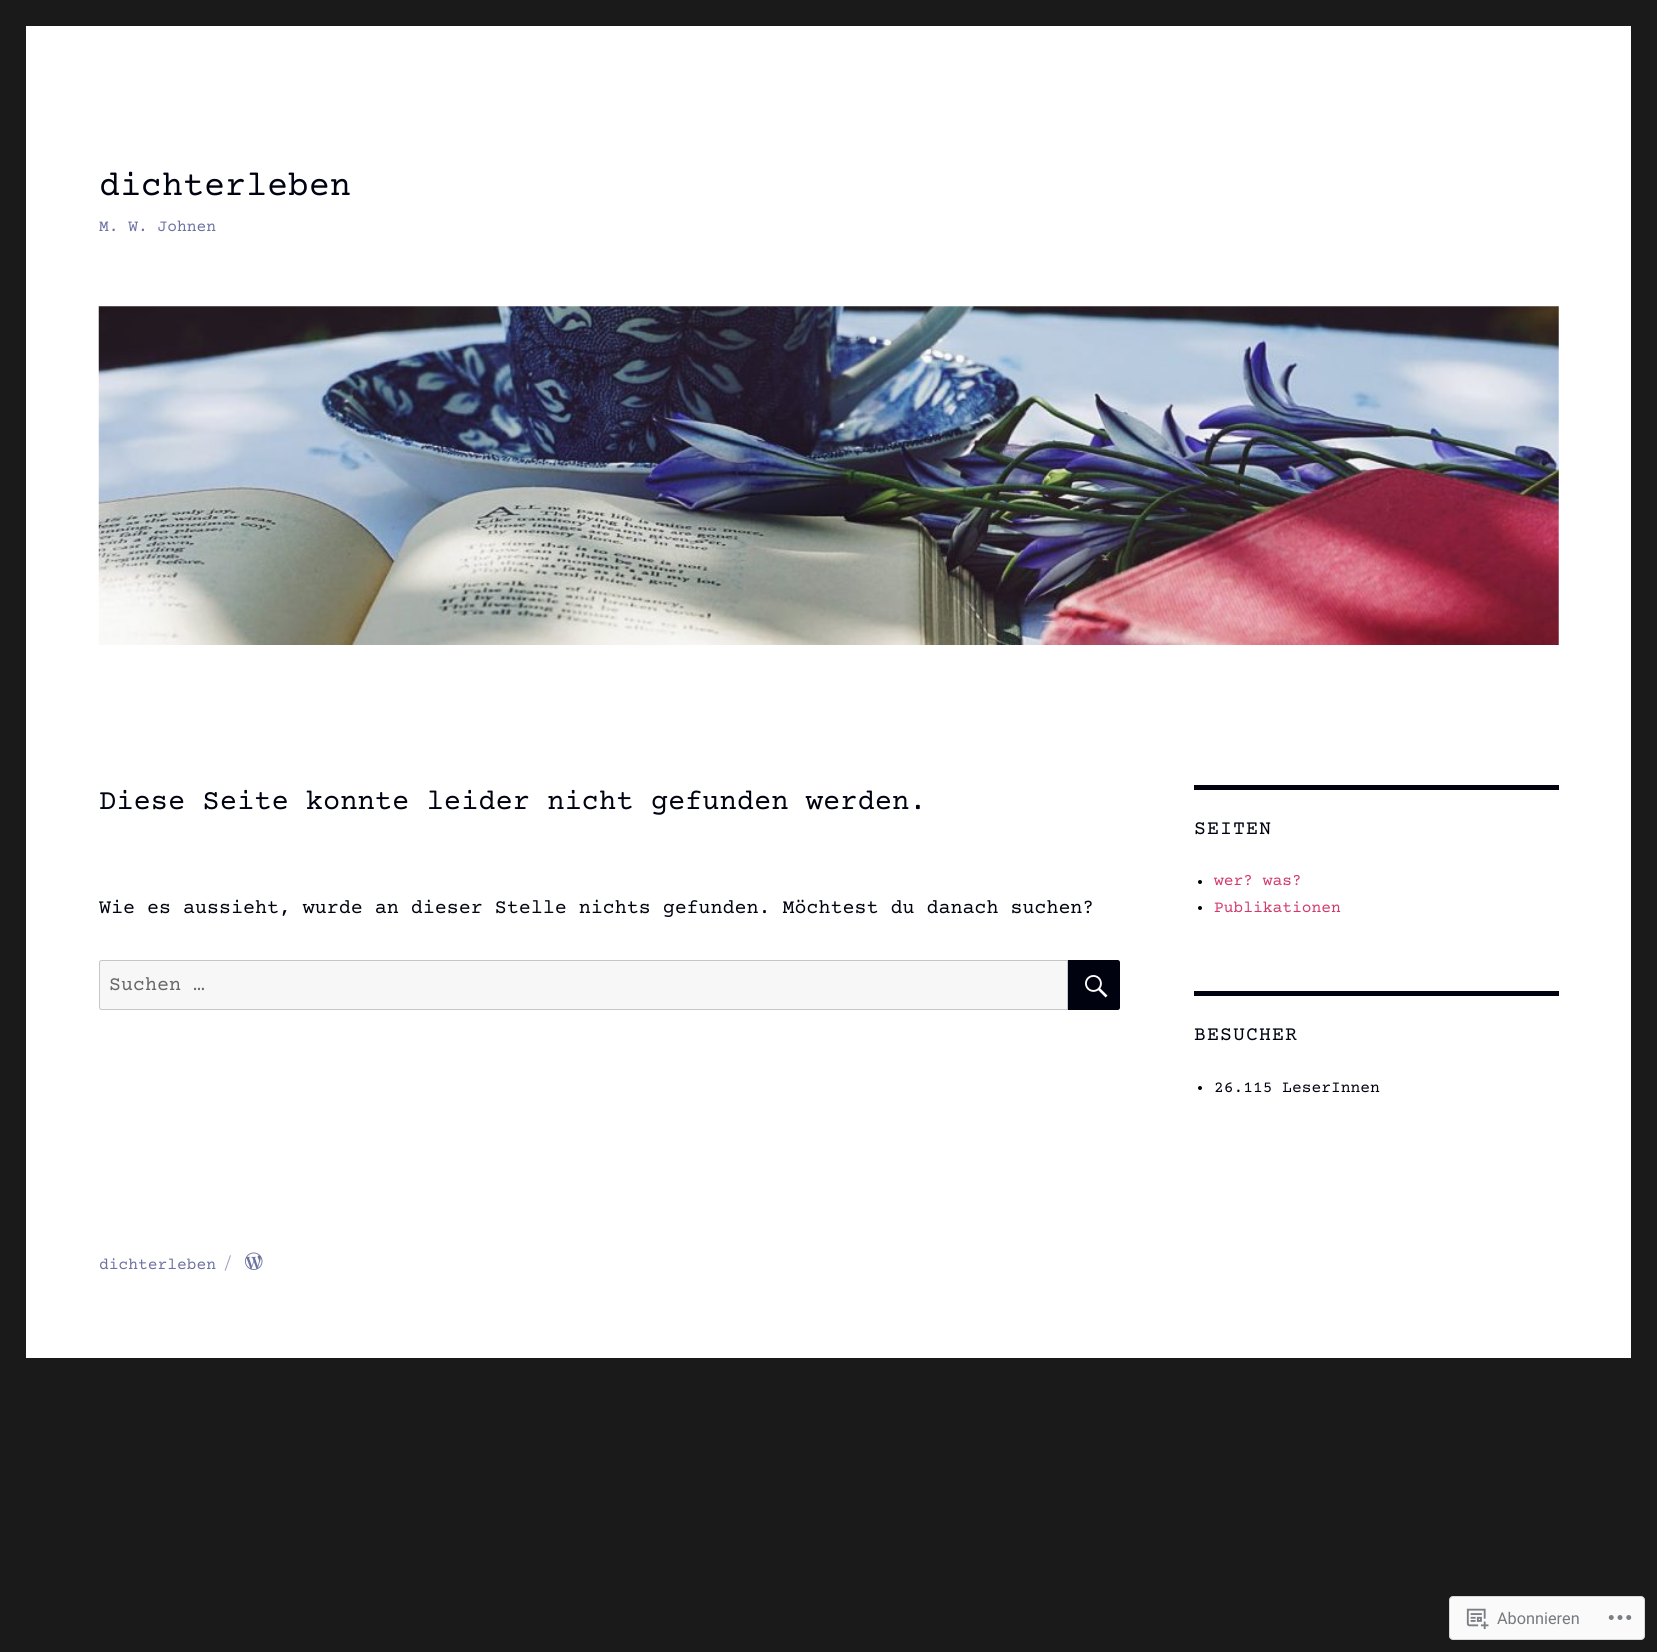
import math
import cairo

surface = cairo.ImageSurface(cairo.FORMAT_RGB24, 1657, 1652)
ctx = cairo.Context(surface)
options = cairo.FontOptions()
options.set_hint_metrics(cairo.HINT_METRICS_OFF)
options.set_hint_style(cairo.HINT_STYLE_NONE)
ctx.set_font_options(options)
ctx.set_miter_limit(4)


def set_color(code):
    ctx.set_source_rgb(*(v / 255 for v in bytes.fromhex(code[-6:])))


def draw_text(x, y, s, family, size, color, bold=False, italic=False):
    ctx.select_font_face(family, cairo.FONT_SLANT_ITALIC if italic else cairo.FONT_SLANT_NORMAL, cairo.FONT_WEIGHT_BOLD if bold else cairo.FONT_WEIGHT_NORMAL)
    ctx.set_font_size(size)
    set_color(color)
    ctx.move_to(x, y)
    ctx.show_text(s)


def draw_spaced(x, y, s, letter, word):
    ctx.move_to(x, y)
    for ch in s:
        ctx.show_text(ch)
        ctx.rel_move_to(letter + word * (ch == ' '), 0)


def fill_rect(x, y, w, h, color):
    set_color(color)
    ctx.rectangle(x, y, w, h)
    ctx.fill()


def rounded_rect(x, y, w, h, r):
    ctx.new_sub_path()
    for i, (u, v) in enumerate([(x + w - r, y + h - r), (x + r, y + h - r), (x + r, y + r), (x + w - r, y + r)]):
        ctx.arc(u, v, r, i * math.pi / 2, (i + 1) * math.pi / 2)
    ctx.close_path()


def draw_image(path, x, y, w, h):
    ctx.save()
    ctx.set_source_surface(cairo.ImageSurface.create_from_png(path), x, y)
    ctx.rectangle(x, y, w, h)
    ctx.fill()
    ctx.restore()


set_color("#1a1a1a")
ctx.paint()
fill_rect(26, 26, 1605, 1332, "#ffffff")
draw_text(99, 195, "dichterleben", "Courier Prime", 35, "#00030f")
draw_text(99, 231, "M. W. Johnen", "Courier Prime", 16.25, "#6c72a1")
draw_image("assets/img1.png", 98, 306, 1461, 339)
draw_text(99, 809, "Diese Seite konnte leider nicht gefunden werden.", "Courier Prime", 28.75, "#00030f")
draw_text(99, 913, "Wie es aussieht, wurde an dieser Stelle nichts gefunden. Möchtest du danach suchen?", "Courier Prime", 20, "#00030f")
set_color("#f7f7f7")
ctx.new_path()
ctx.move_to(101.5, 960.5)
ctx.line_to(1067.5, 960.5)
ctx.line_to(1067.5, 1009.5)
ctx.line_to(101.5, 1009.5)
ctx.curve_to(100.5, 1009.5, 99.5, 1008.5, 99.5, 1007.5)
ctx.line_to(99.5, 962.5)
ctx.curve_to(99.5, 961.5, 100.5, 960.5, 101.5, 960.5)
ctx.close_path()
ctx.fill_preserve()
set_color("#c6c6c9")
ctx.set_line_width(1)
ctx.stroke()
draw_text(109, 990, "Suchen …", "Courier Prime", 20, "#686868")
set_color("#00030f")
ctx.new_path()
ctx.move_to(1068, 960)
ctx.line_to(1117.5, 960)
ctx.curve_to(1119, 960, 1120, 961, 1120, 962.5)
ctx.line_to(1120, 1007.5)
ctx.curve_to(1120, 1009, 1119, 1010, 1117.5, 1010)
ctx.line_to(1068, 1010)
ctx.close_path()
ctx.fill()
draw_image("assets/img2.png", 1085, 975, 23, 23)
fill_rect(1194, 785, 365, 5, "#00030f")
draw_spaced(1194, 834, "SEITEN", 1, 0)
ctx.new_path()
ctx.arc(1200, 882, 2, 0, 2 * math.pi)
ctx.fill()
draw_text(1214, 885, "wer? was?", "Courier Prime", 16.25, "#d33a6b")
set_color("#00030f")
ctx.new_path()
ctx.arc(1200, 908, 2, 0, 2 * math.pi)
ctx.fill()
draw_text(1214, 912, "Publikationen", "Courier Prime", 16.25, "#d33a6b")
fill_rect(1194, 991, 365, 5, "#00030f")
ctx.set_font_size(20)
draw_spaced(1194, 1040, "BESUCHER", 1, 0)
ctx.new_path()
ctx.arc(1200, 1088, 2, 0, 2 * math.pi)
ctx.fill()
draw_text(1214, 1092, "26.115 LeserInnen", "Courier Prime", 16.25, "#00030f")
draw_text(99, 1269, "dichterleben", "Courier Prime", 16.25, "#6c72a1")
draw_text(225, 1269, "/", "Montserrat", 16.25, "#989cbd")
draw_image("assets/img3.png", 245, 1252, 18, 18)
set_color("#fafafa")
rounded_rect(1449.5, 1596.5, 195, 43, 3.5)
ctx.fill_preserve()
set_color("#d8d8da")
ctx.stroke()
draw_image("assets/img4.png", 1466, 1608, 23, 22)
draw_text(1497, 1624, "Abonnieren", "Roboto", 16.25, "#767a80")
draw_image("assets/img5.png", 1608, 1615, 24, 5)
surface.write_to_png("output.png")
